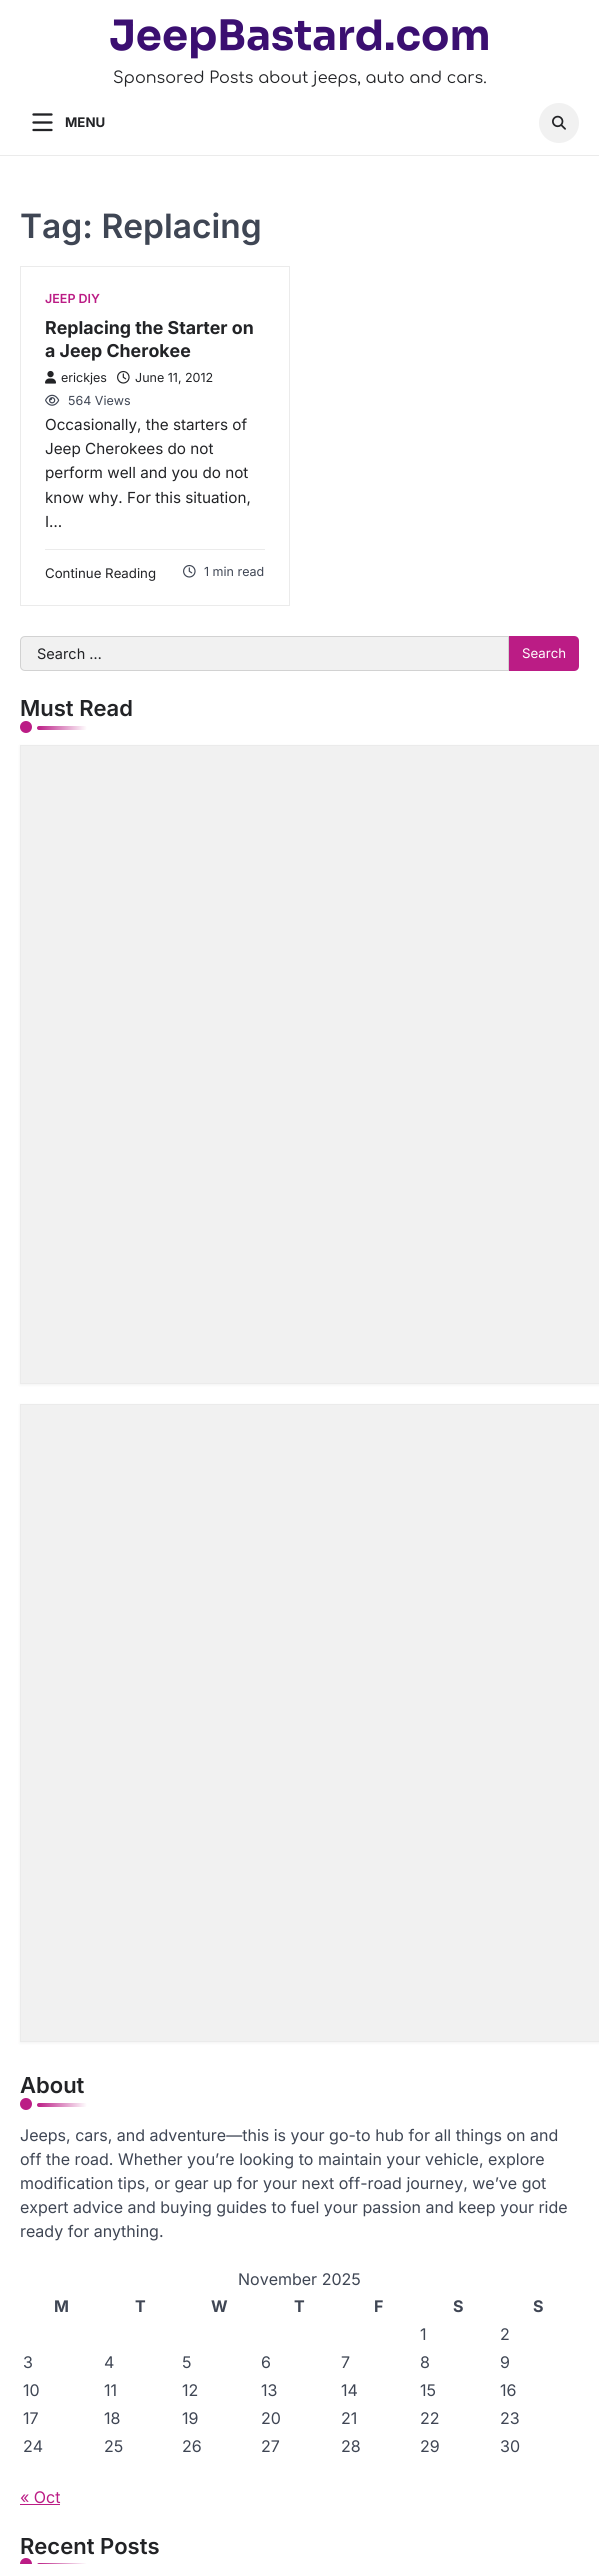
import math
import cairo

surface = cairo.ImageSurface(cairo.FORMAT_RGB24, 599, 2564)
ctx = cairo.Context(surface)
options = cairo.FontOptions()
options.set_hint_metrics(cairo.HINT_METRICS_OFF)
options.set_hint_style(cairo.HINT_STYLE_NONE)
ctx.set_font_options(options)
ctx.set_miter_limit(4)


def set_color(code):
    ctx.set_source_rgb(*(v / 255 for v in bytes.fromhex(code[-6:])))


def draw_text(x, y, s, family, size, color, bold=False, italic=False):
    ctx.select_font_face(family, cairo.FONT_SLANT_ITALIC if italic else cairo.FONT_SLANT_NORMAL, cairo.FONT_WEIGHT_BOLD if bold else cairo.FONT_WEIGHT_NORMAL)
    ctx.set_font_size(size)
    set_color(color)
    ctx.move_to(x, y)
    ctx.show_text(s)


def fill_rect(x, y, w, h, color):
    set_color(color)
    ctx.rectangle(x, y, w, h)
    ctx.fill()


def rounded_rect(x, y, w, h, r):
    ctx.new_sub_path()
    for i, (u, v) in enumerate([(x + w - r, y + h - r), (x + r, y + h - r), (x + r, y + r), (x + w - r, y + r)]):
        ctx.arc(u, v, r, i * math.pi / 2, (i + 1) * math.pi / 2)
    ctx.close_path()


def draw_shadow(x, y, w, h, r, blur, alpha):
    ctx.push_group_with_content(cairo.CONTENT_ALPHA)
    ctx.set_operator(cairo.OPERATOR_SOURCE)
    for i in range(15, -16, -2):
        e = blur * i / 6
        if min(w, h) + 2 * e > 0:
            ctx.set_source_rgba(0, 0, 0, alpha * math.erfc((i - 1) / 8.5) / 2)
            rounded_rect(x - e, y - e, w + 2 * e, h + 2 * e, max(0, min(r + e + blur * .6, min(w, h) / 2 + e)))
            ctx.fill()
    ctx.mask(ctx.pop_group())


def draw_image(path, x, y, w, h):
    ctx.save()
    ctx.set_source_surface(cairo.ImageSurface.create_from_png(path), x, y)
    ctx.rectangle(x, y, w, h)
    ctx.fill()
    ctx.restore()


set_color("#ffffff")
ctx.paint()
fill_rect(0, 155, 599, 1, "#ebebeb")
draw_text(109, 50, "JeepBastard.com", "Sora", 41.75, "#3b0f71", bold=True)
draw_text(113, 83, "Sponsored Posts about jeeps, auto and cars.", "Comfortaa", 16, "#222326")
ctx.new_path()
ctx.move_to(33.5, 114.5)
ctx.line_to(51.5, 114.5)
ctx.move_to(33.5, 122.5)
ctx.line_to(51.5, 122.5)
ctx.move_to(33.5, 130)
ctx.line_to(51.5, 130)
ctx.set_line_width(2.3)
ctx.set_line_cap(cairo.LINE_CAP_ROUND)
ctx.set_line_join(cairo.LINE_JOIN_ROUND)
ctx.stroke()
draw_text(65, 127, "MENU", "Inter", 13.25, "#222326", bold=True)
set_color("#f1f1f1")
ctx.new_path()
ctx.arc(559, 123, 20, 0, 2 * math.pi)
ctx.fill()
draw_image("assets/img1.png", 552, 115, 14, 15)
draw_text(20, 238, "Tag: Replacing", "Inter SemiBold", 33.5, "#3f4654")
ctx.rectangle(20.5, 266.5, 269, 339)
set_color("#ebebeb")
ctx.set_line_width(1)
ctx.set_line_cap(cairo.LINE_CAP_BUTT)
ctx.set_line_join(cairo.LINE_JOIN_MITER)
ctx.stroke()
draw_text(45, 303, "JEEP DIY", "Inter SemiBold", 12.5, "#bb1c85")
draw_text(45, 334, "Replacing the Starter on", "Inter", 17.75, "#222326", bold=True)
draw_text(45, 357, "a Jeep Cherokee", "Inter", 17.75, "#222326", bold=True)
draw_image("assets/img2.png", 45, 370, 11, 14)
draw_text(61, 382, "erickjes", "Inter", 12.5, "#222326")
draw_image("assets/img3.png", 117, 370, 13, 14)
draw_text(135, 382, "June 11, 2012", "Inter", 12.5, "#222326")
draw_image("assets/img4.png", 45, 394, 15, 12)
draw_text(68, 405, "564 Views", "Inter", 12.5, "#3f4654")
draw_text(45, 430, "Occasionally, the starters of", "Inter", 15.25, "#222326")
draw_text(45, 454, "Jeep Cherokees do not", "Inter", 15.25, "#222326")
draw_text(45, 478, "perform well and you do not", "Inter", 15.25, "#222326")
draw_text(45, 503, "know why. For this situation,", "Inter", 15.25, "#222326")
draw_text(45, 527, "I…", "Inter", 15.25, "#222326")
fill_rect(45, 549, 220, 1, "#ebebeb")
draw_text(45, 578, "Continue Reading", "Inter", 13.25, "#222326")
draw_image("assets/img5.png", 183, 564, 13, 14)
draw_text(204, 576, "1 min read", "Inter", 12.5, "#3f4654")
set_color("#f1f1f1")
ctx.new_path()
ctx.move_to(25, 636)
ctx.line_to(509, 636)
ctx.line_to(509, 671)
ctx.line_to(25, 671)
ctx.curve_to(22, 671, 20, 669, 20, 666)
ctx.line_to(20, 641)
ctx.curve_to(20, 638, 22, 636, 25, 636)
ctx.close_path()
ctx.fill()
ctx.new_path()
ctx.move_to(25, 636.5)
ctx.line_to(508.5, 636.5)
ctx.line_to(508.5, 670.5)
ctx.line_to(25, 670.5)
ctx.curve_to(22.5, 670.5, 20.5, 668.5, 20.5, 666)
ctx.line_to(20.5, 641)
ctx.curve_to(20.5, 638.5, 22.5, 636.5, 25, 636.5)
ctx.close_path()
ctx.set_source_rgba(0.133, 0.137, 0.149, 0.15)
ctx.stroke()
draw_text(37, 659, "Search …", "Inter", 14.5, "#222326")
set_color("#bb1c85")
ctx.new_path()
ctx.move_to(509, 636)
ctx.line_to(574, 636)
ctx.curve_to(577, 636, 579, 638, 579, 641)
ctx.line_to(579, 666)
ctx.curve_to(579, 669, 577, 671, 574, 671)
ctx.line_to(509, 671)
ctx.close_path()
ctx.fill()
draw_text(522, 658, "Search", "Inter", 13.25, "#ffffff")
draw_text(20, 716, "Must Read", "Inter SemiBold", 22, "#222326")
set_color("#bb1c85")
ctx.new_path()
ctx.arc(26, 727, 6, 0, 2 * math.pi)
ctx.fill()
gradient = cairo.LinearGradient(37, 728, 87, 728)
gradient.add_color_stop_rgba(0, 0.733, 0.11, 0.522, 1)
gradient.add_color_stop_rgba(1, 1, 1, 1, 1)
ctx.set_source(gradient)
rounded_rect(37, 726, 50, 4, 2)
ctx.fill()
set_color("#030303")
draw_shadow(20, 746, 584, 639, 0, 1.5, 0.05)
ctx.rectangle(20.5, 745.5, 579, 638)
set_color("#ebebeb")
ctx.stroke()
fill_rect(21, 746, 578, 637, "#f1f1f1")
set_color("#030303")
draw_shadow(20, 1405, 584, 638, 0, 1.5, 0.05)
ctx.rectangle(20.5, 1404.5, 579, 637)
set_color("#ebebeb")
ctx.stroke()
fill_rect(21, 1405, 578, 636, "#f1f1f1")
draw_text(20, 2093, "About", "Inter SemiBold", 22, "#222326")
set_color("#bb1c85")
ctx.new_path()
ctx.arc(26, 2104, 6, 0, 2 * math.pi)
ctx.fill()
gradient = cairo.LinearGradient(37, 2105, 87, 2105)
gradient.add_color_stop_rgba(0, 0.733, 0.11, 0.522, 1)
gradient.add_color_stop_rgba(1, 1, 1, 1, 1)
ctx.set_source(gradient)
rounded_rect(37, 2103, 50, 4, 2)
ctx.fill()
draw_text(20, 2141, "Jeeps, cars, and adventure—this is your go-to hub for all things on and", "Inter", 16, "#3f4654")
draw_text(20, 2165, "off the road. Whether you’re looking to maintain your vehicle, explore", "Inter", 16, "#3f4654")
draw_text(20, 2189, "modification tips, or gear up for your next off-road journey, we’ve got", "Inter", 16, "#3f4654")
draw_text(20, 2213, "expert advice and buying guides to fuel your passion and keep your ride", "Inter", 16, "#3f4654")
draw_text(20, 2237, "ready for anything.", "Inter", 16, "#3f4654")
draw_text(238, 2285, "November 2025", "Inter", 16, "#3f4654")
draw_text(54, 2312, "M", "Inter", 16, "#3f4654", bold=True)
draw_text(135, 2312, "T", "Inter", 16, "#3f4654", bold=True)
draw_text(211, 2312, "W", "Inter", 16, "#3f4654", bold=True)
draw_text(294, 2312, "T", "Inter", 16, "#3f4654", bold=True)
draw_text(374, 2312, "F", "Inter", 16, "#3f4654", bold=True)
draw_text(453, 2312, "S", "Inter", 16, "#3f4654", bold=True)
draw_text(533, 2312, "S", "Inter", 16, "#3f4654", bold=True)
draw_text(420, 2340, "1", "Inter", 16, "#3f4654")
draw_text(500, 2340, "2", "Inter", 16, "#3f4654")
draw_text(23, 2368, "3", "Inter", 16, "#3f4654")
draw_text(104, 2368, "4", "Inter", 16, "#3f4654")
draw_text(182, 2368, "5", "Inter", 16, "#3f4654")
draw_text(261, 2368, "6", "Inter", 16, "#3f4654")
draw_text(341, 2368, "7", "Inter", 16, "#3f4654")
draw_text(420, 2368, "8", "Inter", 16, "#3f4654")
draw_text(500, 2368, "9", "Inter", 16, "#3f4654")
draw_text(23, 2396, "10", "Inter", 16, "#3f4654")
draw_text(104, 2396, "11", "Inter", 16, "#3f4654")
draw_text(182, 2396, "12", "Inter", 16, "#3f4654")
draw_text(261, 2396, "13", "Inter", 16, "#3f4654")
draw_text(341, 2396, "14", "Inter", 16, "#3f4654")
draw_text(420, 2396, "15", "Inter", 16, "#3f4654")
draw_text(500, 2396, "16", "Inter", 16, "#3f4654")
draw_text(23, 2424, "17", "Inter", 16, "#3f4654")
draw_text(104, 2424, "18", "Inter", 16, "#3f4654")
draw_text(182, 2424, "19", "Inter", 16, "#3f4654")
draw_text(261, 2424, "20", "Inter", 16, "#3f4654")
draw_text(341, 2424, "21", "Inter", 16, "#3f4654")
draw_text(420, 2424, "22", "Inter", 16, "#3f4654")
draw_text(500, 2424, "23", "Inter", 16, "#3f4654")
draw_text(23, 2452, "24", "Inter", 16, "#3f4654")
draw_text(104, 2452, "25", "Inter", 16, "#3f4654")
draw_text(182, 2452, "26", "Inter", 16, "#3f4654")
draw_text(261, 2452, "27", "Inter", 16, "#3f4654")
draw_text(341, 2452, "28", "Inter", 16, "#3f4654")
draw_text(420, 2452, "29", "Inter", 16, "#3f4654")
draw_text(500, 2452, "30", "Inter", 16, "#3f4654")
draw_text(20, 2503, "« Oct", "Inter", 16, "#bb1c85")
fill_rect(20, 2504, 40, 1, "#bb1c85")
draw_text(20, 2554, "Recent Posts", "Inter SemiBold", 22, "#222326")
set_color("#bb1c85")
ctx.new_path()
ctx.arc(26, 2564, 6, 0, 2 * math.pi)
ctx.fill()
gradient = cairo.LinearGradient(37, 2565, 87, 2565)
gradient.add_color_stop_rgba(0, 0.733, 0.11, 0.522, 1)
gradient.add_color_stop_rgba(1, 1, 1, 1, 1)
ctx.set_source(gradient)
rounded_rect(37, 2563, 50, 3, 2)
ctx.fill()
surface.write_to_png("output.png")
